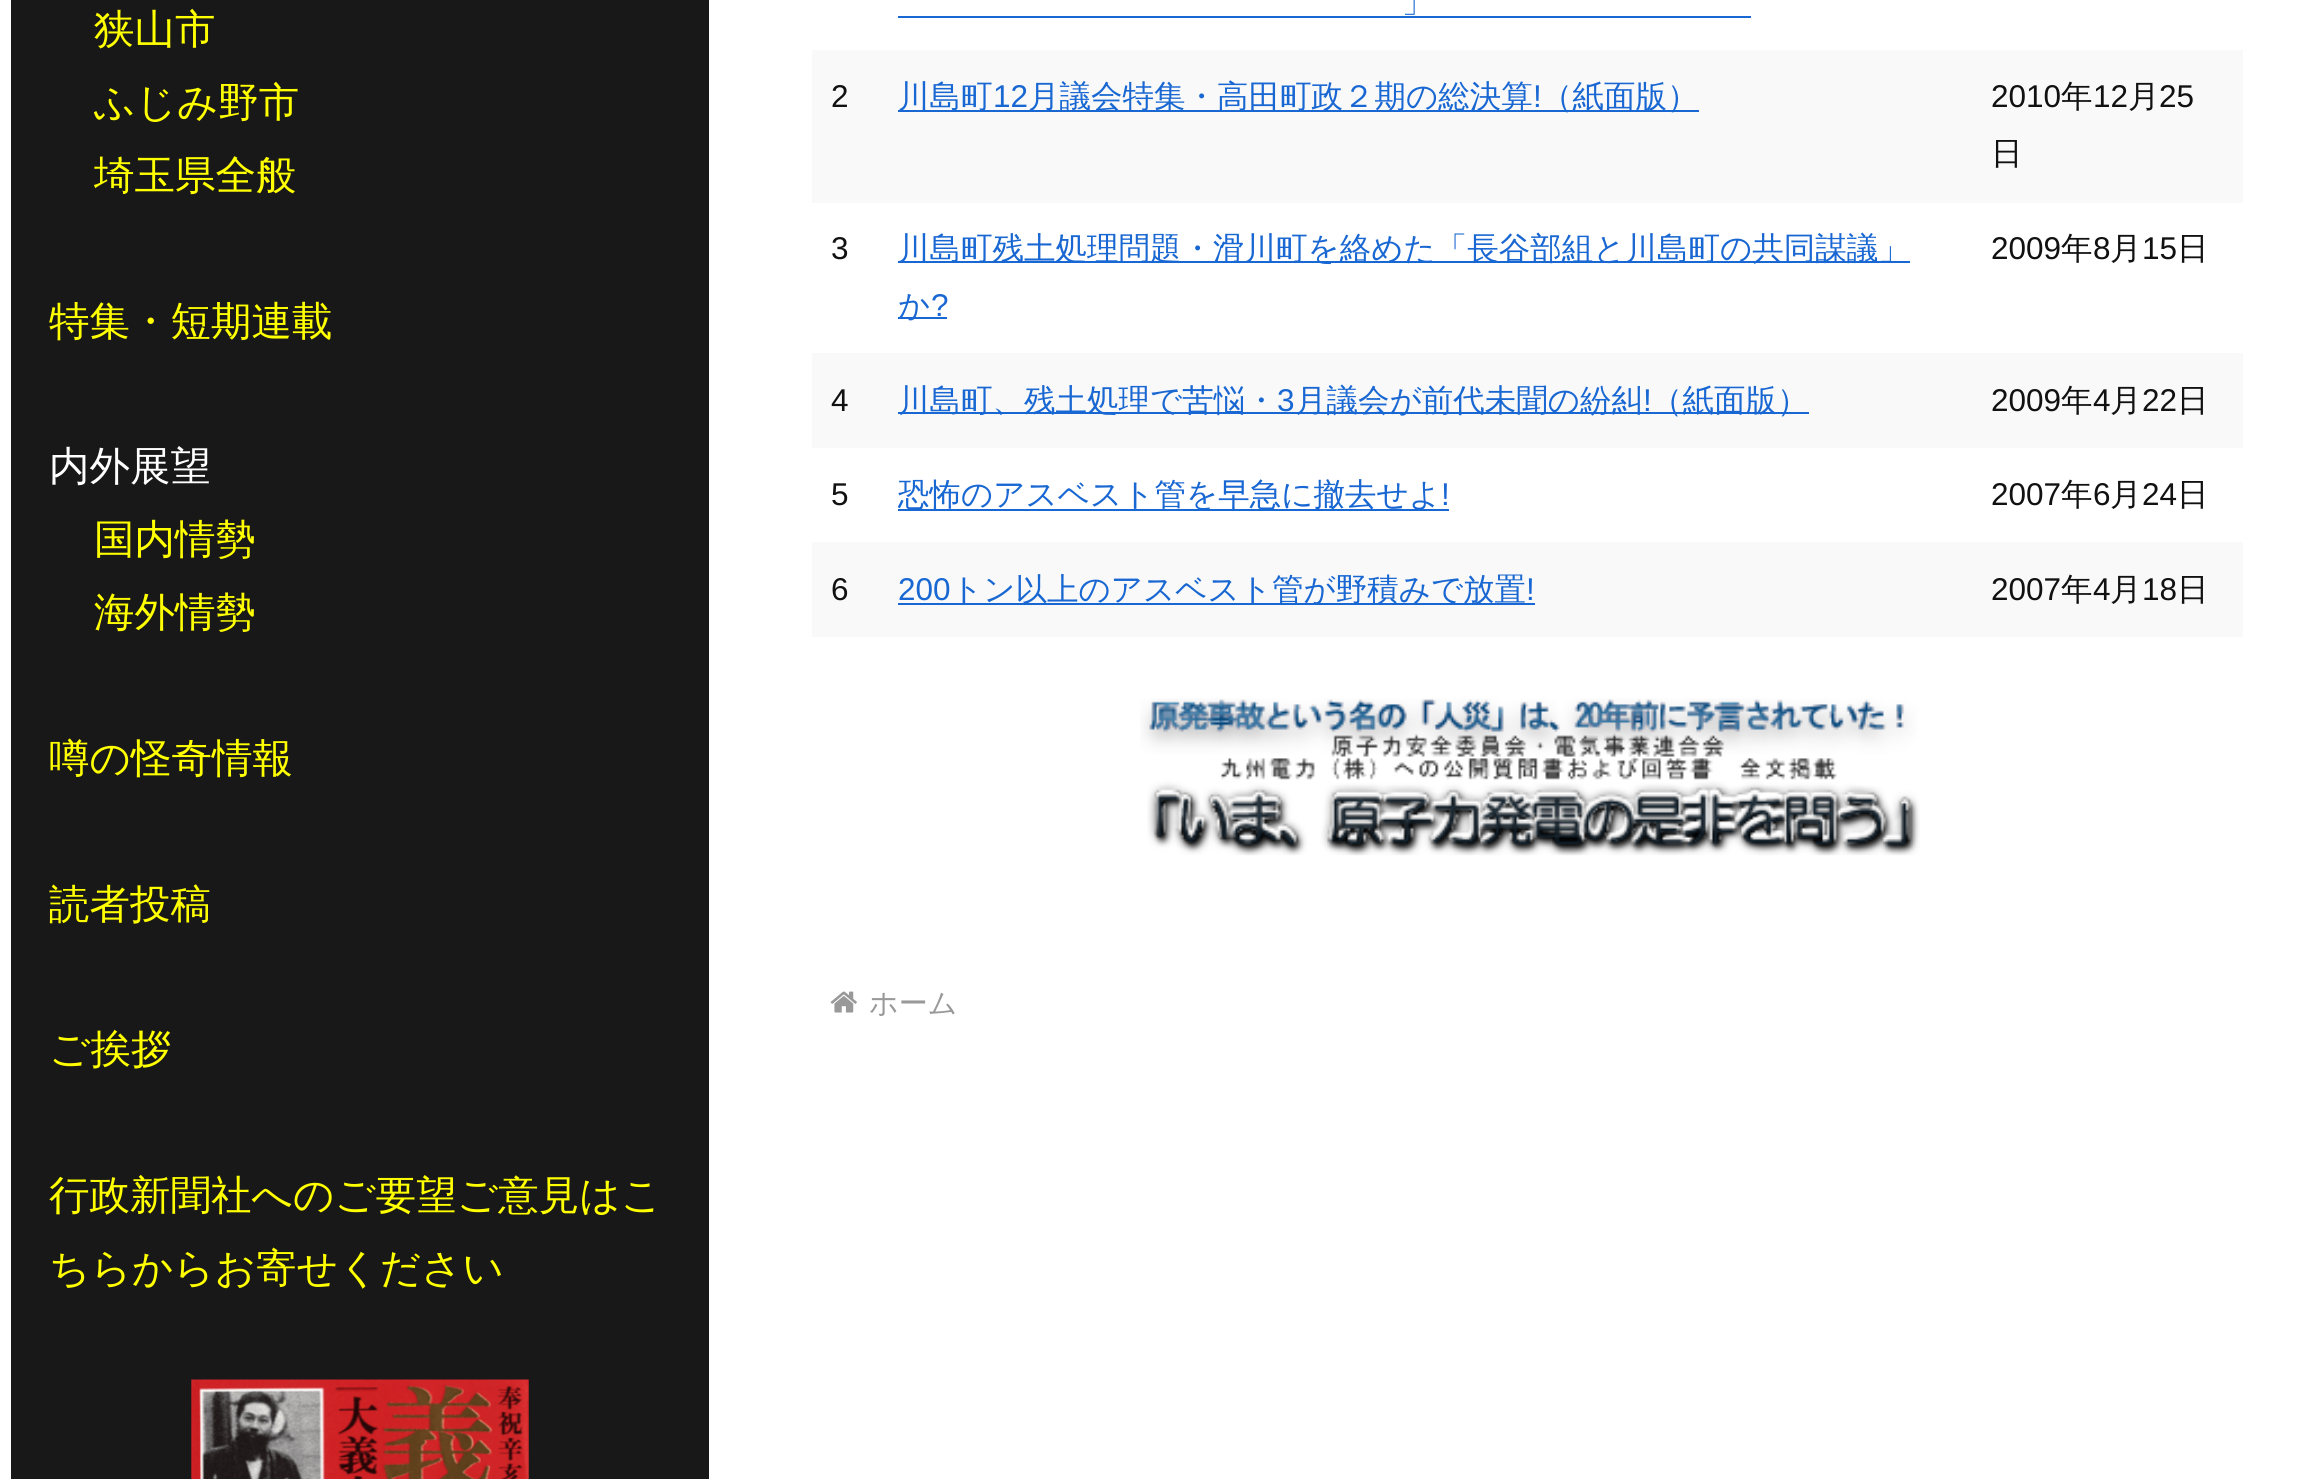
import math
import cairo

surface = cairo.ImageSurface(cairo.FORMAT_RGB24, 2322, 1479)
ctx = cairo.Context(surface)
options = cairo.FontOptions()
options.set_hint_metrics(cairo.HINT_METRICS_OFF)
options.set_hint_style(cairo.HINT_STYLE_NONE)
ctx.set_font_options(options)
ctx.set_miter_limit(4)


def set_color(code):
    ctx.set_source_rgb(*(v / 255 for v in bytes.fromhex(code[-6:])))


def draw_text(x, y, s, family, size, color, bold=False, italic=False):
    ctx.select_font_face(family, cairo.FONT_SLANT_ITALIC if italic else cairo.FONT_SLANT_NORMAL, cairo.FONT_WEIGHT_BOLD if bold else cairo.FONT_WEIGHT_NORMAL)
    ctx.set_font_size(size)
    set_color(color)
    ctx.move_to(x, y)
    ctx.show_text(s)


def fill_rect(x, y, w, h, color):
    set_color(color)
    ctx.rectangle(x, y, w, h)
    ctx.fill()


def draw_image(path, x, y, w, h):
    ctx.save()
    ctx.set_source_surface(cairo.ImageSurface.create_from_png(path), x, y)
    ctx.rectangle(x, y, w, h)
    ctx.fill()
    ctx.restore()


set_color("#ffffff")
ctx.paint()
fill_rect(11, 0, 698, 1479, "#181818")
draw_text(94, 43, "狭山市", "WenQuanYi Zen Hei Medium", 40.5, "#ffff00")
draw_text(94, 116, "ふじみ野市", "WenQuanYi Zen Hei Medium", 40.5, "#ffff00")
draw_text(94, 189, "埼玉県全般", "WenQuanYi Zen Hei Medium", 40.5, "#ffff00")
draw_text(49, 335, "特集・短期連載", "WenQuanYi Zen Hei Medium", 40.5, "#ffff00")
draw_text(49, 480, "内外展望", "WenQuanYi Zen Hei Medium", 40.5, "#ffffff")
draw_text(94, 553, "国内情勢", "WenQuanYi Zen Hei Medium", 40.5, "#ffff00")
draw_text(94, 626, "海外情勢", "WenQuanYi Zen Hei Medium", 40.5, "#ffff00")
draw_text(49, 772, "噂の怪奇情報", "WenQuanYi Zen Hei Medium", 40.5, "#ffff00")
draw_text(49, 918, "読者投稿", "WenQuanYi Zen Hei Medium", 40.5, "#ffff00")
draw_text(49, 1063, "ご挨拶", "WenQuanYi Zen Hei Medium", 40.5, "#ffff00")
draw_text(49, 1209, "行政新聞社へのご要望ご意見はこ", "WenQuanYi Zen Hei Medium", 40.5, "#ffff00")
draw_text(49, 1282, "ちらからお寄せください", "WenQuanYi Zen Hei Medium", 40.5, "#ffff00")
draw_image("assets/img1.png", 191, 1379, 338, 100)
draw_text(1402, 12, "」", "WenQuanYi Zen Hei Medium", 31.5, "#1967d2")
fill_rect(898, 16, 853, 2, "#1967d2")
fill_rect(812, 50, 1431, 153, "#f9f9f9")
draw_text(831, 107, "2", "Liberation Sans", 31.5, "#111111")
fill_rect(898, 110, 801, 2, "#1967d2")
draw_text(898, 107, "川島町", "WenQuanYi Zen Hei Medium", 31.5, "#1967d2")
draw_text(993, 107, "12", "Liberation Sans", 31.5, "#1967d2")
draw_text(1028, 107, "月議会特集・高田町政２期の総決算", "WenQuanYi Zen Hei Medium", 31.5, "#1967d2")
draw_text(1533, 107, "!", "Liberation Sans", 31.5, "#1967d2")
draw_text(1541, 107, "（紙面版）", "WenQuanYi Zen Hei Medium", 31.5, "#1967d2")
draw_text(1991, 107, "2010", "Liberation Sans", 31.5, "#111111")
draw_text(2061, 107, "年", "WenQuanYi Zen Hei Medium", 31.5, "#111111")
draw_text(2093, 107, "12", "Liberation Sans", 31.5, "#111111")
draw_text(2128, 107, "月", "WenQuanYi Zen Hei Medium", 31.5, "#111111")
draw_text(2159, 107, "25", "Liberation Sans", 31.5, "#111111")
draw_text(1991, 164, "日", "WenQuanYi Zen Hei Medium", 31.5, "#111111")
draw_text(831, 259, "3", "Liberation Sans", 31.5, "#111111")
fill_rect(898, 261, 1012, 2, "#1967d2")
draw_text(898, 259, "川島町残土処理問題・滑川町を絡めた「長谷部組と川島町の共同謀議」", "WenQuanYi Zen Hei Medium", 31.5, "#1967d2")
fill_rect(898, 317, 49, 2, "#1967d2")
draw_text(898, 316, "か", "WenQuanYi Zen Hei Medium", 31.5, "#1967d2")
draw_text(931, 316, "?", "Liberation Sans", 31.5, "#1967d2")
draw_text(1991, 259, "2009", "Liberation Sans", 31.5, "#111111")
draw_text(2061, 259, "年", "WenQuanYi Zen Hei Medium", 31.5, "#111111")
draw_text(2093, 259, "8", "Liberation Sans", 31.5, "#111111")
draw_text(2110, 259, "月", "WenQuanYi Zen Hei Medium", 31.5, "#111111")
draw_text(2142, 259, "15", "Liberation Sans", 31.5, "#111111")
draw_text(2177, 259, "日", "WenQuanYi Zen Hei Medium", 31.5, "#111111")
fill_rect(812, 353, 1431, 95, "#f9f9f9")
draw_text(831, 411, "4", "Liberation Sans", 31.5, "#111111")
fill_rect(898, 412, 911, 2, "#1967d2")
draw_text(898, 411, "川島町、残土処理で苦悩・", "WenQuanYi Zen Hei Medium", 31.5, "#1967d2")
draw_text(1277, 411, "3", "Liberation Sans", 31.5, "#1967d2")
draw_text(1295, 411, "月議会が前代未聞の紛糾", "WenQuanYi Zen Hei Medium", 31.5, "#1967d2")
draw_text(1643, 411, "!", "Liberation Sans", 31.5, "#1967d2")
draw_text(1651, 411, "（紙面版）", "WenQuanYi Zen Hei Medium", 31.5, "#1967d2")
draw_text(1991, 411, "2009", "Liberation Sans", 31.5, "#111111")
draw_text(2061, 411, "年", "WenQuanYi Zen Hei Medium", 31.5, "#111111")
draw_text(2093, 411, "4", "Liberation Sans", 31.5, "#111111")
draw_text(2110, 411, "月", "WenQuanYi Zen Hei Medium", 31.5, "#111111")
draw_text(2142, 411, "22", "Liberation Sans", 31.5, "#111111")
draw_text(2177, 411, "日", "WenQuanYi Zen Hei Medium", 31.5, "#111111")
draw_text(831, 505, "5", "Liberation Sans", 31.5, "#111111")
fill_rect(898, 509, 551, 2, "#1967d2")
draw_text(898, 505, "恐怖のアスベスト管を早急に撤去せよ", "WenQuanYi Zen Hei Medium", 31.5, "#1967d2")
draw_text(1441, 505, "!", "Liberation Sans", 31.5, "#1967d2")
draw_text(1991, 505, "2007", "Liberation Sans", 31.5, "#111111")
draw_text(2061, 505, "年", "WenQuanYi Zen Hei Medium", 31.5, "#111111")
draw_text(2093, 505, "6", "Liberation Sans", 31.5, "#111111")
draw_text(2110, 505, "月", "WenQuanYi Zen Hei Medium", 31.5, "#111111")
draw_text(2142, 505, "24", "Liberation Sans", 31.5, "#111111")
draw_text(2177, 505, "日", "WenQuanYi Zen Hei Medium", 31.5, "#111111")
fill_rect(812, 542, 1431, 95, "#f9f9f9")
draw_text(831, 600, "6", "Liberation Sans", 31.5, "#111111")
draw_text(898, 600, "200", "Liberation Sans", 31.5, "#1967d2")
fill_rect(898, 603, 637, 2, "#1967d2")
draw_text(951, 600, "トン以上のアスベスト管が野積みで放置", "WenQuanYi Zen Hei Medium", 31.5, "#1967d2")
draw_text(1526, 600, "!", "Liberation Sans", 31.5, "#1967d2")
draw_text(1991, 600, "2007", "Liberation Sans", 31.5, "#111111")
draw_text(2061, 600, "年", "WenQuanYi Zen Hei Medium", 31.5, "#111111")
draw_text(2093, 600, "4", "Liberation Sans", 31.5, "#111111")
draw_text(2110, 600, "月", "WenQuanYi Zen Hei Medium", 31.5, "#111111")
draw_text(2142, 600, "18", "Liberation Sans", 31.5, "#111111")
draw_text(2177, 600, "日", "WenQuanYi Zen Hei Medium", 31.5, "#111111")
draw_image("assets/img2.png", 1140, 698, 780, 158)
draw_image("assets/img3.png", 830, 991, 27, 22)
draw_text(869, 1013, "ホーム", "WenQuanYi Zen Hei Medium", 29, "#999999")
surface.write_to_png("output.png")
